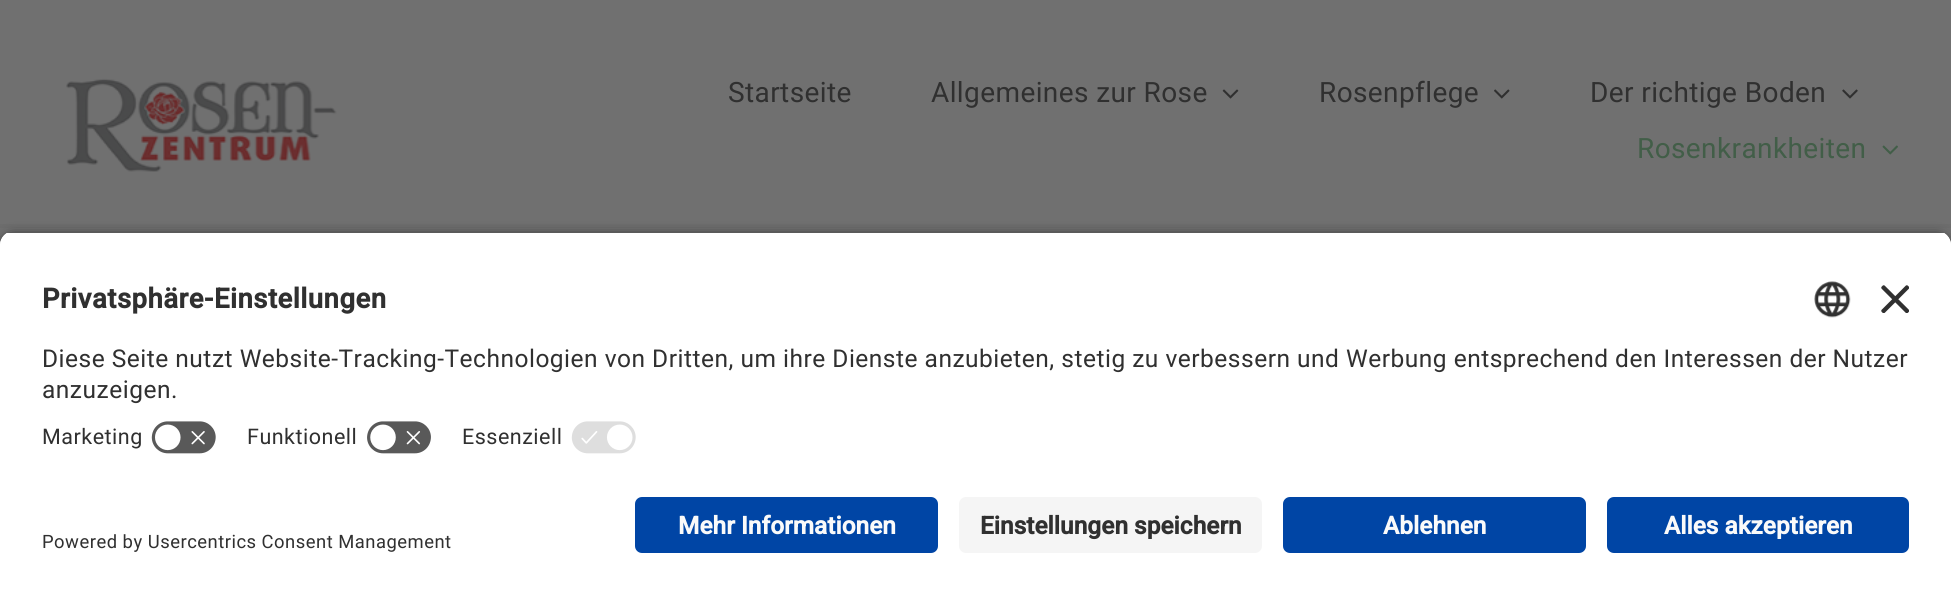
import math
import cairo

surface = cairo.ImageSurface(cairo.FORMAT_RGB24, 1951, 595)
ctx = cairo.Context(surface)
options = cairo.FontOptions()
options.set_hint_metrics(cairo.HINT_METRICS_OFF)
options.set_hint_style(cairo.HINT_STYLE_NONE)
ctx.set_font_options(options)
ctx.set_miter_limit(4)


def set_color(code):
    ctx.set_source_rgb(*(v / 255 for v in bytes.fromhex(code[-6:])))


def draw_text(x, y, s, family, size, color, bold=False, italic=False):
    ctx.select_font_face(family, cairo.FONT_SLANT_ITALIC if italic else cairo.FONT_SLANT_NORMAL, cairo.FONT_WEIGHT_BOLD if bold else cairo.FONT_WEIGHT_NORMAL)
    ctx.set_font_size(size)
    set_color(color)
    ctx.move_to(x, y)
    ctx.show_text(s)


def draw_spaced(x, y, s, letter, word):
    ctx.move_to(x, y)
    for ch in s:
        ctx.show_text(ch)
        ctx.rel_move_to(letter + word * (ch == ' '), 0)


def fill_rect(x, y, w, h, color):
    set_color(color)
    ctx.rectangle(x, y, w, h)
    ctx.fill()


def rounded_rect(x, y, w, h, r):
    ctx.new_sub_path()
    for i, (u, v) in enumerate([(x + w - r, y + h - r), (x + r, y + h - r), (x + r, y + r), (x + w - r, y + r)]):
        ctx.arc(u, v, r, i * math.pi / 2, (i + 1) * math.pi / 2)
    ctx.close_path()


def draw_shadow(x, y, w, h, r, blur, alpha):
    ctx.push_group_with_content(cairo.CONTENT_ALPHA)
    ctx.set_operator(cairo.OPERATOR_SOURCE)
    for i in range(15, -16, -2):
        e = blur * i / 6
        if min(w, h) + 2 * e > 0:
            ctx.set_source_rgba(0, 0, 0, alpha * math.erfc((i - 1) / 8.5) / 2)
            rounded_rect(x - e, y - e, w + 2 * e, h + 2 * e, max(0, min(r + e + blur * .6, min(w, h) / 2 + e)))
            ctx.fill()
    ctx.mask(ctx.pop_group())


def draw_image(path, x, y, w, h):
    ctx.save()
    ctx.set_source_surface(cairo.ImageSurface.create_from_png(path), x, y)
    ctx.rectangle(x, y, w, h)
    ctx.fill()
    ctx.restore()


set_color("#707070")
ctx.paint()
fill_rect(0, 224, 1951, 4, "#6d6d6d")
draw_image("assets/img1.png", 66, 78, 271, 94)
ctx.select_font_face("Roboto")
ctx.set_font_size(28)
set_color("#303030")
draw_spaced(728, 102, "Startseite", 0.4, 0)
draw_spaced(931, 102, "Allgemeines zur Rose", 0.4, 0)
draw_image("assets/img2.png", 1222, 89, 17, 10)
draw_spaced(1319, 102, "Rosenpflege", 0.4, 0)
draw_image("assets/img3.png", 1494, 89, 16, 10)
draw_spaced(1590, 102, "Der richtige Boden", 0.4, 0)
draw_image("assets/img4.png", 1842, 89, 16, 10)
set_color("#425e48")
draw_spaced(1637, 158, "Rosenkrankheiten", 0.4, 0)
draw_image("assets/img5.png", 1882, 145, 16, 10)
set_color("#000000")
draw_shadow(0, 236, 1951, 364, 14, 6, 0.8)
ctx.save()
ctx.new_path()
ctx.move_to(14, 231)
ctx.line_to(1937, 231)
ctx.curve_to(1944.5, 231, 1951, 237.5, 1951, 245)
ctx.line_to(1951, 483)
ctx.line_to(0, 483)
ctx.line_to(0, 245)
ctx.curve_to(0, 237.5, 6.5, 231, 14, 231)
ctx.close_path()
ctx.clip()
fill_rect(0, 233, 1951, 250, "#ffffff")
fill_rect(0, 233, 1951, 180, "#ffffff")
ctx.restore()
ctx.select_font_face("Roboto", cairo.FONT_SLANT_NORMAL, cairo.FONT_WEIGHT_BOLD)
ctx.set_font_size(27.5)
set_color("#303030")
draw_spaced(42, 308, "Privatsphäre-Einstellungen", 0.5, 0)
draw_image("assets/img6.png", 1814, 281, 37, 37)
draw_image("assets/img7.png", 1881, 285, 28, 28)
ctx.select_font_face("Roboto")
ctx.set_font_size(24.5)
draw_spaced(42, 367, "Diese Seite nutzt Website-Tracking-Technologien von Dritten, um ihre Dienste anzubieten, stetig zu verbessern und Werbung entsprechend den Interessen der Nutzer", 0.5, 0)
draw_spaced(42, 398, "anzuzeigen.", 0.5, 0)
ctx.set_font_size(21.5)
draw_spaced(42, 444, "Marketing", 0.5, 0)
draw_image("assets/img8.png", 151, 421, 65, 33)
draw_spaced(247, 444, "Funktionell", 0.5, 0)
draw_image("assets/img9.png", 367, 421, 64, 33)
draw_spaced(462, 444, "Essenziell", 0.5, 0)
draw_image("assets/img10.png", 571, 421, 65, 33)
fill_rect(0, 483, 1951, 112, "#ffffff")
set_color("#0045a5")
rounded_rect(635, 497, 303, 56, 7)
ctx.fill()
draw_text(678, 534, "Mehr Informationen", "Roboto", 24.5, "#fafafa", bold=True)
set_color("#f5f5f5")
rounded_rect(959, 497, 303, 56, 7)
ctx.fill()
draw_text(980, 534, "Einstellungen speichern", "Roboto", 24.5, "#303030", bold=True)
set_color("#0045a5")
rounded_rect(1283, 497, 303, 56, 7)
ctx.fill()
draw_text(1383, 534, "Ablehnen", "Roboto", 24.5, "#fafafa", bold=True)
set_color("#0045a5")
rounded_rect(1607, 497, 302, 56, 7)
ctx.fill()
draw_text(1664, 534, "Alles akzeptieren", "Roboto", 24.5, "#fafafa", bold=True)
ctx.select_font_face("Roboto")
ctx.set_font_size(18.4)
set_color("#303030")
draw_spaced(42, 548, "Powered by Usercentrics Consent Management", 0.5, 0)
surface.write_to_png("output.png")
